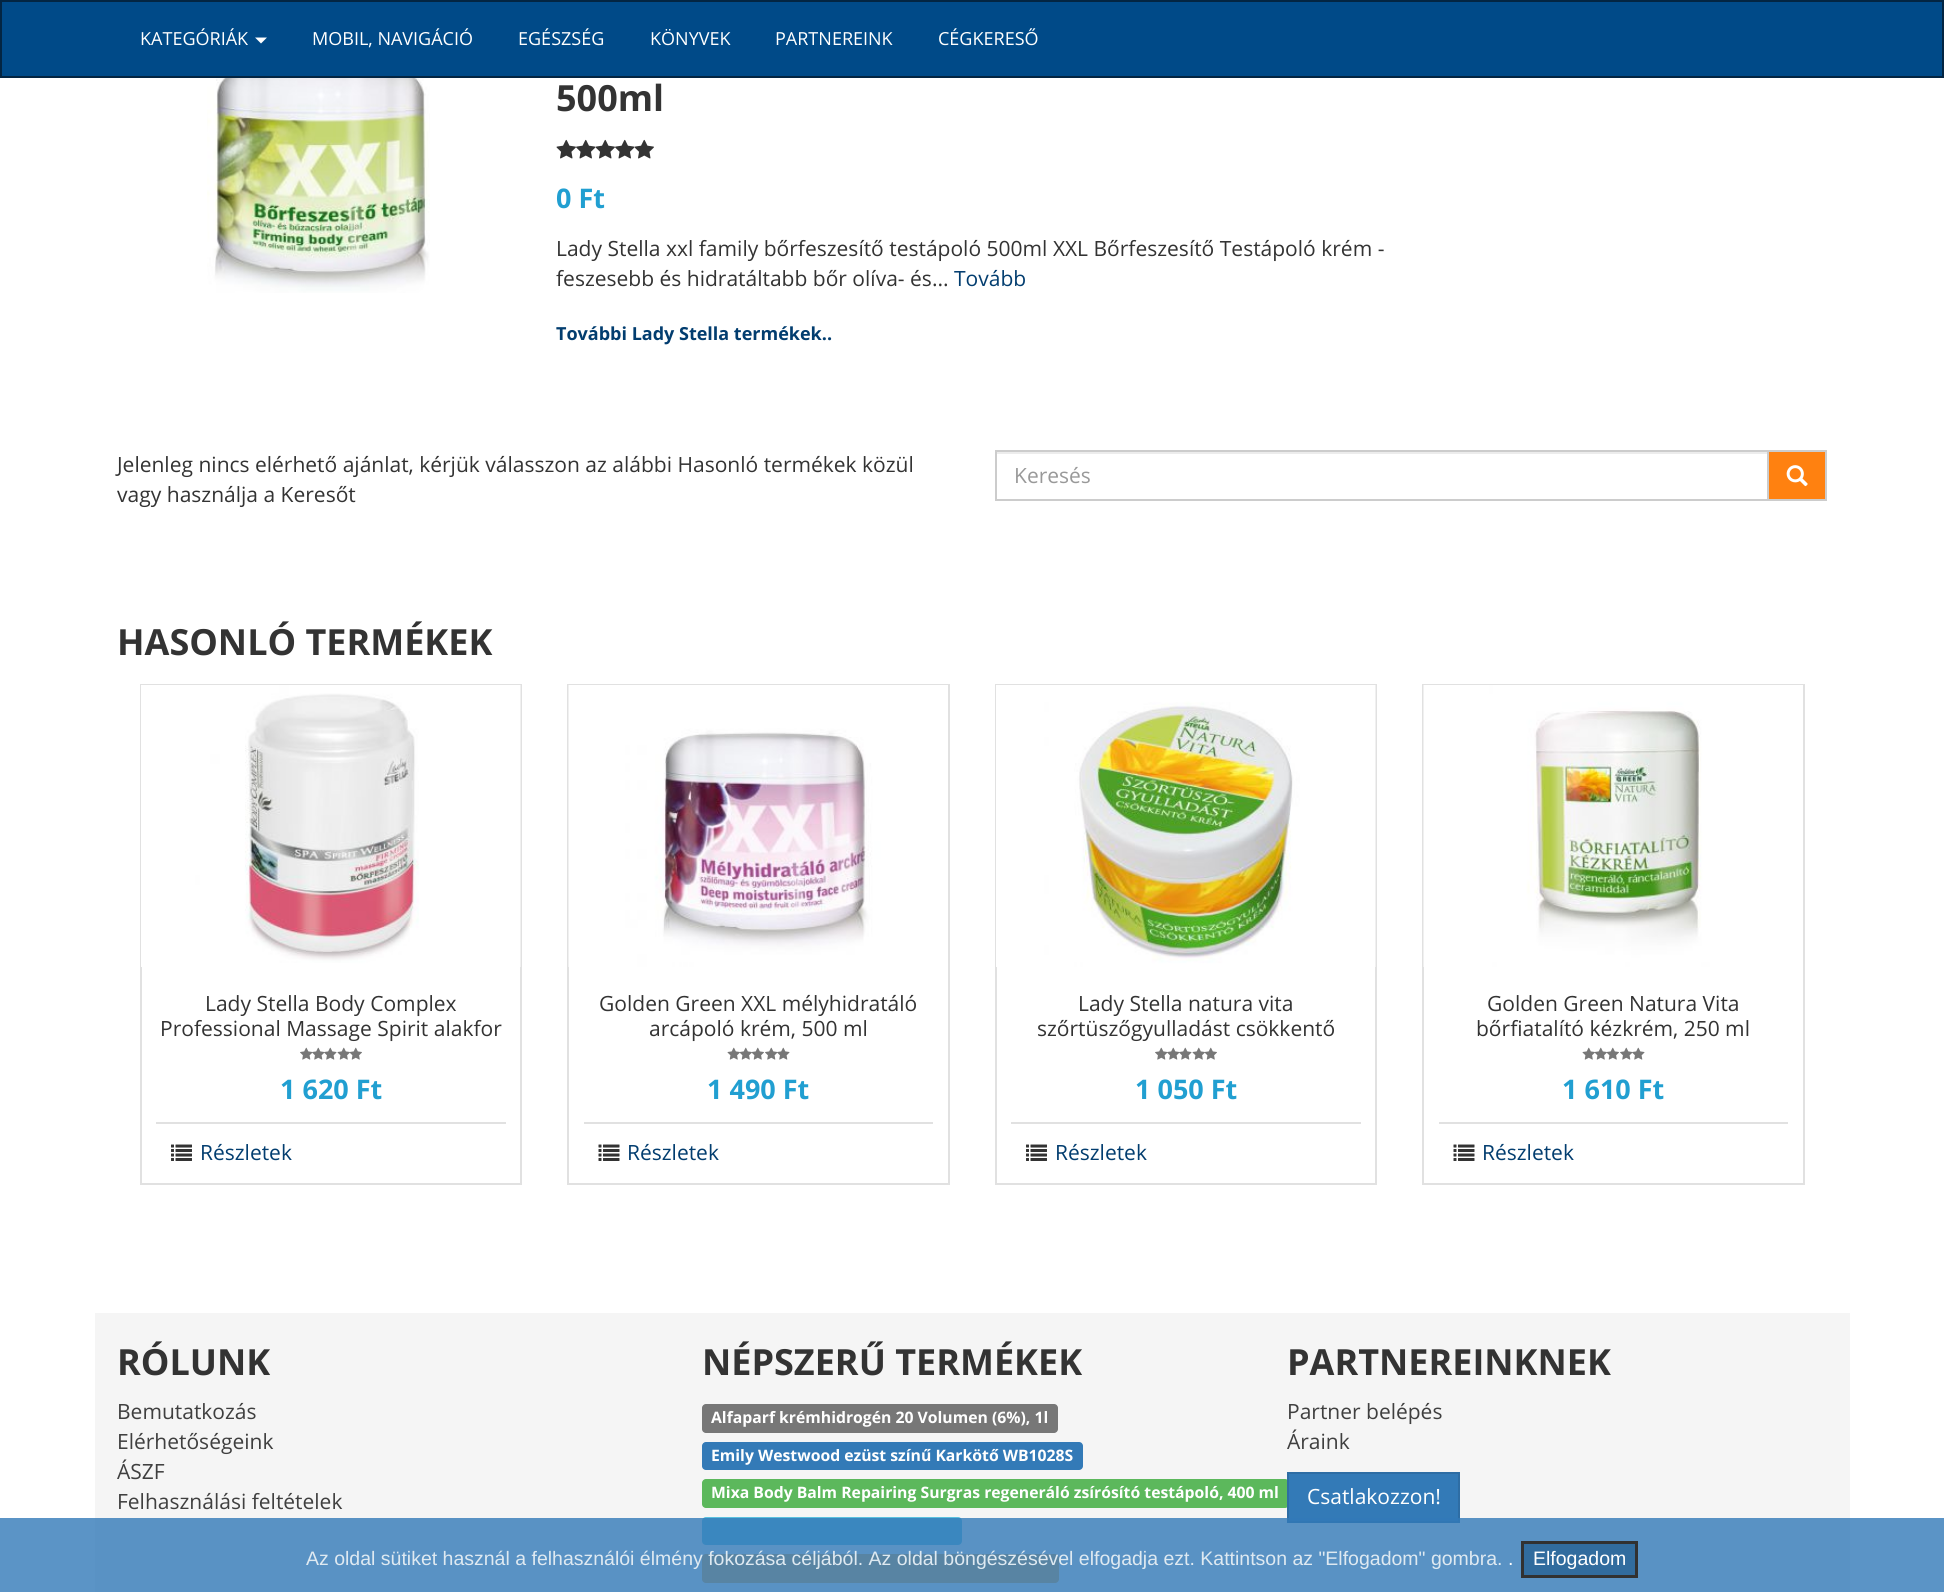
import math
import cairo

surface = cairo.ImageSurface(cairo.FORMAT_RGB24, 1944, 1592)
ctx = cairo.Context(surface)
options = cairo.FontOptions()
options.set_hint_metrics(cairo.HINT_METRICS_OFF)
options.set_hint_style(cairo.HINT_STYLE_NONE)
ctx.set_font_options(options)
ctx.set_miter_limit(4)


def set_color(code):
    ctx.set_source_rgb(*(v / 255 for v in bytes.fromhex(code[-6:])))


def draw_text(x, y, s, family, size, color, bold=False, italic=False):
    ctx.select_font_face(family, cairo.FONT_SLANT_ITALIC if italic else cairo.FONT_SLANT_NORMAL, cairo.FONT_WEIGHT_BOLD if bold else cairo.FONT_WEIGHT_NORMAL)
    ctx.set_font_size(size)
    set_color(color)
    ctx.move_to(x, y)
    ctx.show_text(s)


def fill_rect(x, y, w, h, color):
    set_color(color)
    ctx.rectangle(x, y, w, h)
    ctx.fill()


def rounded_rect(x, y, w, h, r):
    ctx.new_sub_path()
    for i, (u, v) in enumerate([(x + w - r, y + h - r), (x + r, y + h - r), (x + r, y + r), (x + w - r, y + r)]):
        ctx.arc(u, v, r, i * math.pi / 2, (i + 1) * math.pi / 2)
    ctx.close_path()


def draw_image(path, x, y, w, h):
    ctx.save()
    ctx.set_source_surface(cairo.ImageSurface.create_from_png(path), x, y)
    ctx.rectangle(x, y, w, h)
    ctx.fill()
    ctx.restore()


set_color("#ffffff")
ctx.paint()
set_color("#004a88")
ctx.rectangle(1, 1, 1942, 76)
ctx.fill_preserve()
set_color("#032542")
ctx.stroke()
draw_text(140, 45, "KATEGÓRIÁK", "Open Sans", 18, "#ffffff")
ctx.new_path()
ctx.move_to(255, 37.5)
ctx.line_to(267, 37.5)
ctx.line_to(261, 43.5)
ctx.close_path()
ctx.fill()
draw_text(312, 45, "MOBIL, NAVIGÁCIÓ", "Open Sans", 18, "#ffffff")
draw_text(518, 45, "EGÉSZSÉG", "Open Sans", 18, "#ffffff")
draw_text(650, 45, "KÖNYVEK", "Open Sans", 18, "#ffffff")
draw_text(775, 45, "PARTNEREINK", "Open Sans", 18, "#ffffff")
draw_text(938, 45, "CÉGKERESŐ", "Open Sans", 18, "#ffffff")
draw_image("assets/img1.png", 207, 78, 223, 215)
draw_text(556, 111, "500ml", "Open Sans", 36, "#333333", bold=True)
draw_image("assets/img2.png", 556, 139, 20, 20)
draw_image("assets/img3.png", 576, 139, 20, 20)
draw_image("assets/img4.png", 595, 139, 20, 20)
draw_image("assets/img3.png", 615, 139, 20, 20)
draw_image("assets/img4.png", 634, 139, 20, 20)
draw_text(556, 208, "0 Ft", "Open Sans", 27, "#219fd1", bold=True)
draw_text(556, 256, "Lady Stella xxl family bőrfeszesítő testápoló 500ml XXL Bőrfeszesítő Testápoló krém -", "Open Sans", 21, "#333333")
draw_text(556, 286, "feszesebb és hidratáltabb bőr olíva- és...", "Open Sans", 21, "#333333")
draw_text(954, 286, "Tovább", "Open Sans", 21, "#023d6f")
draw_text(556, 340, "További Lady Stella termékek..", "Open Sans", 18, "#023d6f", bold=True)
draw_text(117, 472, "Jelenleg nincs elérhető ajánlat, kérjük válasszon az alábbi Hasonló termékek közül", "Open Sans", 21, "#333333")
draw_text(117, 502, "vagy használja a Keresőt", "Open Sans", 21, "#333333")
fill_rect(996, 452, 771, 2, "#ececec")
set_color("#ff8110")
ctx.rectangle(1768, 451, 58, 49)
ctx.fill_preserve()
set_color("#cccccc")
ctx.stroke()
ctx.rectangle(996, 451, 772, 49)
ctx.stroke()
draw_text(1014, 483, "Keresés", "Open Sans", 21, "#999999")
draw_image("assets/img5.png", 1786, 465, 22, 22)
draw_text(117, 655, "HASONLÓ TERMÉKEK", "Open Sans", 36, "#333333", bold=True)
ctx.rectangle(141, 685, 380, 499)
set_color("#e1e1e1")
ctx.stroke()
draw_image("assets/img6.png", 141, 685, 380, 282)
draw_text(205, 1011, "Lady Stella Body Complex", "Open Sans", 21, "#333333")
draw_text(160, 1036, "Professional Massage Spirit alakfor", "Open Sans", 21, "#333333")
draw_image("assets/img7.png", 300, 1047, 13, 13)
draw_image("assets/img8.png", 312, 1047, 13, 13)
draw_image("assets/img8.png", 324, 1047, 13, 13)
draw_image("assets/img9.png", 337, 1047, 13, 13)
draw_image("assets/img10.png", 349, 1047, 13, 13)
draw_text(280, 1099, "1 620 Ft", "Open Sans", 27, "#219fd1", bold=True)
fill_rect(156, 1122, 350, 2, "#e1e1e1")
draw_image("assets/img11.png", 171, 1144, 21, 17)
draw_text(200, 1160, "Részletek", "Open Sans", 21, "#023d6f")
ctx.rectangle(568, 685, 381, 499)
set_color("#e1e1e1")
ctx.stroke()
draw_image("assets/img12.png", 568, 685, 380, 282)
draw_text(599, 1011, "Golden Green XXL mélyhidratáló", "Open Sans", 21, "#333333")
draw_text(649, 1036, "arcápoló krém, 500 ml", "Open Sans", 21, "#333333")
draw_image("assets/img9.png", 727, 1047, 13, 13)
draw_image("assets/img10.png", 739, 1047, 13, 13)
draw_image("assets/img10.png", 751, 1047, 13, 13)
draw_image("assets/img7.png", 765, 1047, 13, 13)
draw_image("assets/img8.png", 777, 1047, 13, 13)
draw_text(707, 1099, "1 490 Ft", "Open Sans", 27, "#219fd1", bold=True)
fill_rect(584, 1122, 349, 2, "#e1e1e1")
draw_image("assets/img13.png", 598, 1144, 22, 17)
draw_text(627, 1160, "Részletek", "Open Sans", 21, "#023d6f")
ctx.rectangle(996, 685, 380, 499)
set_color("#e1e1e1")
ctx.stroke()
draw_image("assets/img14.png", 996, 685, 380, 282)
draw_text(1078, 1011, "Lady Stella natura vita", "Open Sans", 21, "#333333")
draw_text(1037, 1036, "szőrtüszőgyulladást csökkentő", "Open Sans", 21, "#333333")
draw_image("assets/img7.png", 1155, 1047, 13, 13)
draw_image("assets/img8.png", 1167, 1047, 13, 13)
draw_image("assets/img8.png", 1179, 1047, 13, 13)
draw_image("assets/img9.png", 1192, 1047, 13, 13)
draw_image("assets/img10.png", 1204, 1047, 13, 13)
draw_text(1135, 1099, "1 050 Ft", "Open Sans", 27, "#219fd1", bold=True)
fill_rect(1011, 1122, 350, 2, "#e1e1e1")
draw_image("assets/img11.png", 1026, 1144, 21, 17)
draw_text(1055, 1160, "Részletek", "Open Sans", 21, "#023d6f")
ctx.rectangle(1423, 685, 381, 499)
set_color("#e1e1e1")
ctx.stroke()
draw_image("assets/img15.png", 1423, 685, 380, 282)
draw_text(1487, 1011, "Golden Green Natura Vita", "Open Sans", 21, "#333333")
draw_text(1476, 1036, "bőrfiatalító kézkrém, 250 ml", "Open Sans", 21, "#333333")
draw_image("assets/img9.png", 1582, 1047, 13, 13)
draw_image("assets/img10.png", 1594, 1047, 13, 13)
draw_image("assets/img10.png", 1606, 1047, 13, 13)
draw_image("assets/img7.png", 1620, 1047, 13, 13)
draw_image("assets/img8.png", 1632, 1047, 13, 13)
draw_text(1562, 1099, "1 610 Ft", "Open Sans", 27, "#219fd1", bold=True)
fill_rect(1439, 1122, 349, 2, "#e1e1e1")
draw_image("assets/img13.png", 1453, 1144, 22, 17)
draw_text(1482, 1160, "Részletek", "Open Sans", 21, "#023d6f")
fill_rect(95, 1313, 1755, 279, "#f5f5f5")
draw_text(117, 1375, "RÓLUNK", "Open Sans", 36, "#333333", bold=True)
draw_text(117, 1419, "Bemutatkozás", "Open Sans", 21, "#3f3f3f")
draw_text(117, 1449, "Elérhetőségeink", "Open Sans", 21, "#3f3f3f")
draw_text(117, 1479, "ÁSZF", "Open Sans", 21, "#3f3f3f")
draw_text(117, 1509, "Felhasználási feltételek", "Open Sans", 21, "#3f3f3f")
draw_text(702, 1375, "NÉPSZERŰ TERMÉKEK", "Open Sans", 36, "#333333", bold=True)
set_color("#777777")
rounded_rect(702, 1404, 356, 29, 4)
ctx.fill()
draw_text(711, 1423, "Alfaparf krémhidrogén 20 Volumen (6%), 1l", "Open Sans", 15.75, "#ffffff", bold=True)
set_color("#337ab7")
rounded_rect(702, 1442, 381, 28, 4)
ctx.fill()
draw_text(711, 1461, "Emily Westwood ezüst színű Karkötő WB1028S", "Open Sans", 15.75, "#ffffff", bold=True)
set_color("#5cb85c")
rounded_rect(702, 1479, 587, 29, 4)
ctx.fill()
draw_text(711, 1498, "Mixa Body Balm Repairing Surgras regeneráló zsírósító testápoló, 400 ml", "Open Sans", 15.75, "#ffffff", bold=True)
set_color("#5bc0de")
rounded_rect(702, 1517, 260, 28, 4)
ctx.fill()
set_color("#f0ad4e")
rounded_rect(702, 1554, 357, 29, 4)
ctx.fill()
draw_text(1287, 1375, "PARTNEREINKNEK", "Open Sans", 36, "#333333", bold=True)
draw_text(1287, 1419, "Partner belépés", "Open Sans", 21, "#3f3f3f")
draw_text(1287, 1449, "Áraink", "Open Sans", 21, "#3f3f3f")
set_color("#337ab7")
ctx.rectangle(1288, 1473, 171, 49)
ctx.fill_preserve()
set_color("#2e6da4")
ctx.stroke()
draw_text(1307, 1504, "Csatlakozzon!", "Open Sans", 21, "#ffffff")
ctx.set_source_rgba(0.2, 0.478, 0.718, 0.8)
ctx.rectangle(0, 1518, 1944, 74)
ctx.fill()
draw_text(306, 1565, "Az oldal sütiket használ a felhasználói élmény fokozása céljából. Az oldal böngészésével elfogadja ezt. Kattintson az \"Elfogadom\" gombra.", "Liberation Sans", 19.5, "#dee9f1")
draw_text(1508, 1565, ".", "Liberation Sans", 19.5, "#ffffff")
set_color("#316c9e")
ctx.rectangle(1522.5, 1542.5, 114, 34)
ctx.fill_preserve()
set_color("#313131")
ctx.set_line_width(3)
ctx.stroke()
draw_text(1533, 1565, "Elfogadom", "Liberation Sans", 19.5, "#ffffff")
surface.write_to_png("output.png")
